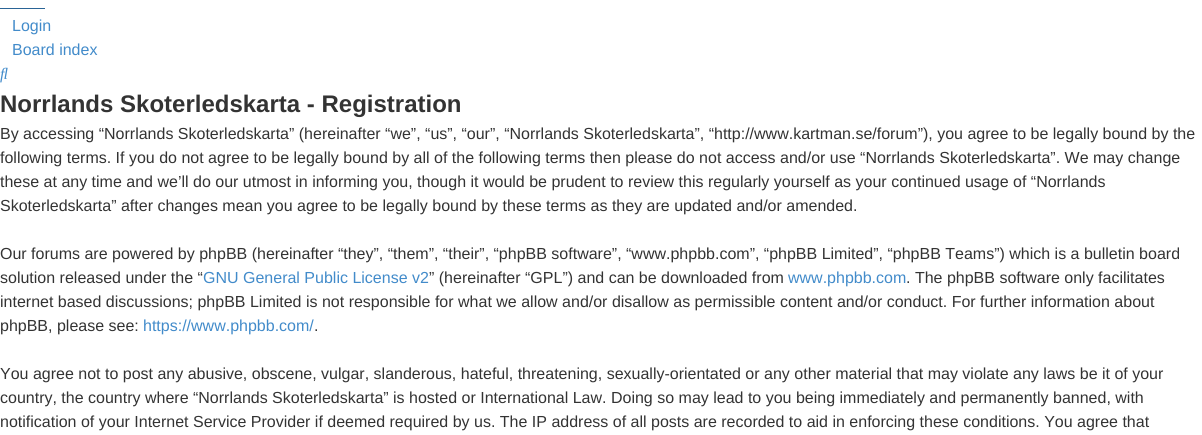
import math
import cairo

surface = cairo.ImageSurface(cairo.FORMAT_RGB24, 1202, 435)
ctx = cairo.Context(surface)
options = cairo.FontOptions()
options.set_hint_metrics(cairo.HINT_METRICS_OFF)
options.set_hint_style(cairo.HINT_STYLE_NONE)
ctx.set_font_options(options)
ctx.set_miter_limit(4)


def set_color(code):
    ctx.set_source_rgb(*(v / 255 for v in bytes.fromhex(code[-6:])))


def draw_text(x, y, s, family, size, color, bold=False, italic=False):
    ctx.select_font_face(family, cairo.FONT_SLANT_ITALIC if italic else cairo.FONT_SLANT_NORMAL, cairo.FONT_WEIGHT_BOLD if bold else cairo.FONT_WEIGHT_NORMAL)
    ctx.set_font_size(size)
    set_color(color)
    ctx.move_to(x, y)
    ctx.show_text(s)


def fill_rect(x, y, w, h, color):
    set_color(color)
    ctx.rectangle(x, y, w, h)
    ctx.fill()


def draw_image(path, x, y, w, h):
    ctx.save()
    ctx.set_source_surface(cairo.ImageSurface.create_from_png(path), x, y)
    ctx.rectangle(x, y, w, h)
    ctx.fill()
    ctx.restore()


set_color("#ffffff")
ctx.paint()
fill_rect(0, 8, 45, 1, "#2a6496")
draw_text(12, 31, "Login", "Liberation Sans", 16, "#428bca")
draw_text(12, 55, "Board index", "Liberation Sans", 16, "#428bca")
draw_image("assets/img1.png", 0, 67, 8, 16)
draw_text(0, 112, "Norrlands Skoterledskarta - Registration", "Liberation Sans", 24, "#333333", bold=True)
draw_text(0, 139, "By accessing “Norrlands Skoterledskarta” (hereinafter “we”, “us”, “our”, “Norrlands Skoterledskarta”, “http://www.kartman.se/forum”), you agree to be legally bound by the", "Liberation Sans", 16, "#333333")
draw_text(0, 163, "following terms. If you do not agree to be legally bound by all of the following terms then please do not access and/or use “Norrlands Skoterledskarta”. We may change", "Liberation Sans", 16, "#333333")
draw_text(0, 187, "these at any time and we’ll do our utmost in informing you, though it would be prudent to review this regularly yourself as your continued usage of “Norrlands", "Liberation Sans", 16, "#333333")
draw_text(0, 211, "Skoterledskarta” after changes mean you agree to be legally bound by these terms as they are updated and/or amended.", "Liberation Sans", 16, "#333333")
draw_text(0, 259, "Our forums are powered by phpBB (hereinafter “they”, “them”, “their”, “phpBB software”, “www.phpbb.com”, “phpBB Limited”, “phpBB Teams”) which is a bulletin board", "Liberation Sans", 16, "#333333")
draw_text(0, 283, "solution released under the “", "Liberation Sans", 16, "#333333")
draw_text(203, 283, "GNU General Public License v2", "Liberation Sans", 16, "#428bca")
draw_text(429, 283, "” (hereinafter “GPL”) and can be downloaded from", "Liberation Sans", 16, "#333333")
draw_text(788, 283, "www.phpbb.com", "Liberation Sans", 16, "#428bca")
draw_text(906, 283, ". The phpBB software only facilitates", "Liberation Sans", 16, "#333333")
draw_text(0, 307, "internet based discussions; phpBB Limited is not responsible for what we allow and/or disallow as permissible content and/or conduct. For further information about", "Liberation Sans", 16, "#333333")
draw_text(0, 331, "phpBB, please see:", "Liberation Sans", 16, "#333333")
draw_text(143, 331, "https://www.phpbb.com/", "Liberation Sans", 16, "#428bca")
draw_text(314, 331, ".", "Liberation Sans", 16, "#333333")
draw_text(0, 379, "You agree not to post any abusive, obscene, vulgar, slanderous, hateful, threatening, sexually-orientated or any other material that may violate any laws be it of your", "Liberation Sans", 16, "#333333")
draw_text(0, 403, "country, the country where “Norrlands Skoterledskarta” is hosted or International Law. Doing so may lead to you being immediately and permanently banned, with", "Liberation Sans", 16, "#333333")
draw_text(0, 427, "notification of your Internet Service Provider if deemed required by us. The IP address of all posts are recorded to aid in enforcing these conditions. You agree that", "Liberation Sans", 16, "#333333")
surface.write_to_png("output.png")
